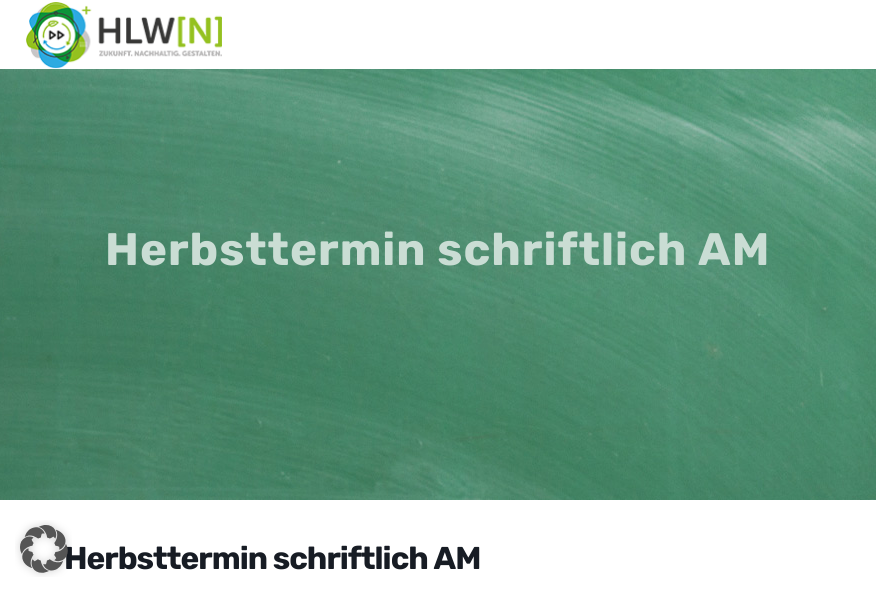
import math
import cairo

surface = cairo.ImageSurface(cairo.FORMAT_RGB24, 876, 593)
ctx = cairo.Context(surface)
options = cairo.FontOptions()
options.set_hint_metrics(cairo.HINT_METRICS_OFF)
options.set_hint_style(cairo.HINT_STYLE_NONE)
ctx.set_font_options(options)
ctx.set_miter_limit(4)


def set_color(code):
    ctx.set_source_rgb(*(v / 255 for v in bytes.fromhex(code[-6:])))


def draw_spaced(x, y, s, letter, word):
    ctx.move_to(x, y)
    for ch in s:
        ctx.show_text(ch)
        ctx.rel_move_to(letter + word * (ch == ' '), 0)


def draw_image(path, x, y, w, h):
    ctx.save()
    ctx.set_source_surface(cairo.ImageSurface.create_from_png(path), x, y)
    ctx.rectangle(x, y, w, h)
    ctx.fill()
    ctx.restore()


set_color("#ffffff")
ctx.paint()
ctx.select_font_face("Rubik", cairo.FONT_SLANT_NORMAL, cairo.FONT_WEIGHT_BOLD)
ctx.set_font_size(31.6)
set_color("#171c24")
draw_spaced(64, 569, "Herbsttermin schriftlich AM", -1, 0)
draw_image("assets/img1.png", 15, 520, 57, 57)
draw_image("assets/img2.png", 26, 2, 196, 67)
draw_image("assets/img3.png", 0, 69, 876, 431)
ctx.set_font_size(45.5)
set_color("#caddd4")
draw_spaced(105, 265, "Herbsttermin schriftlich AM", 1, 0)
surface.write_to_png("output.png")
